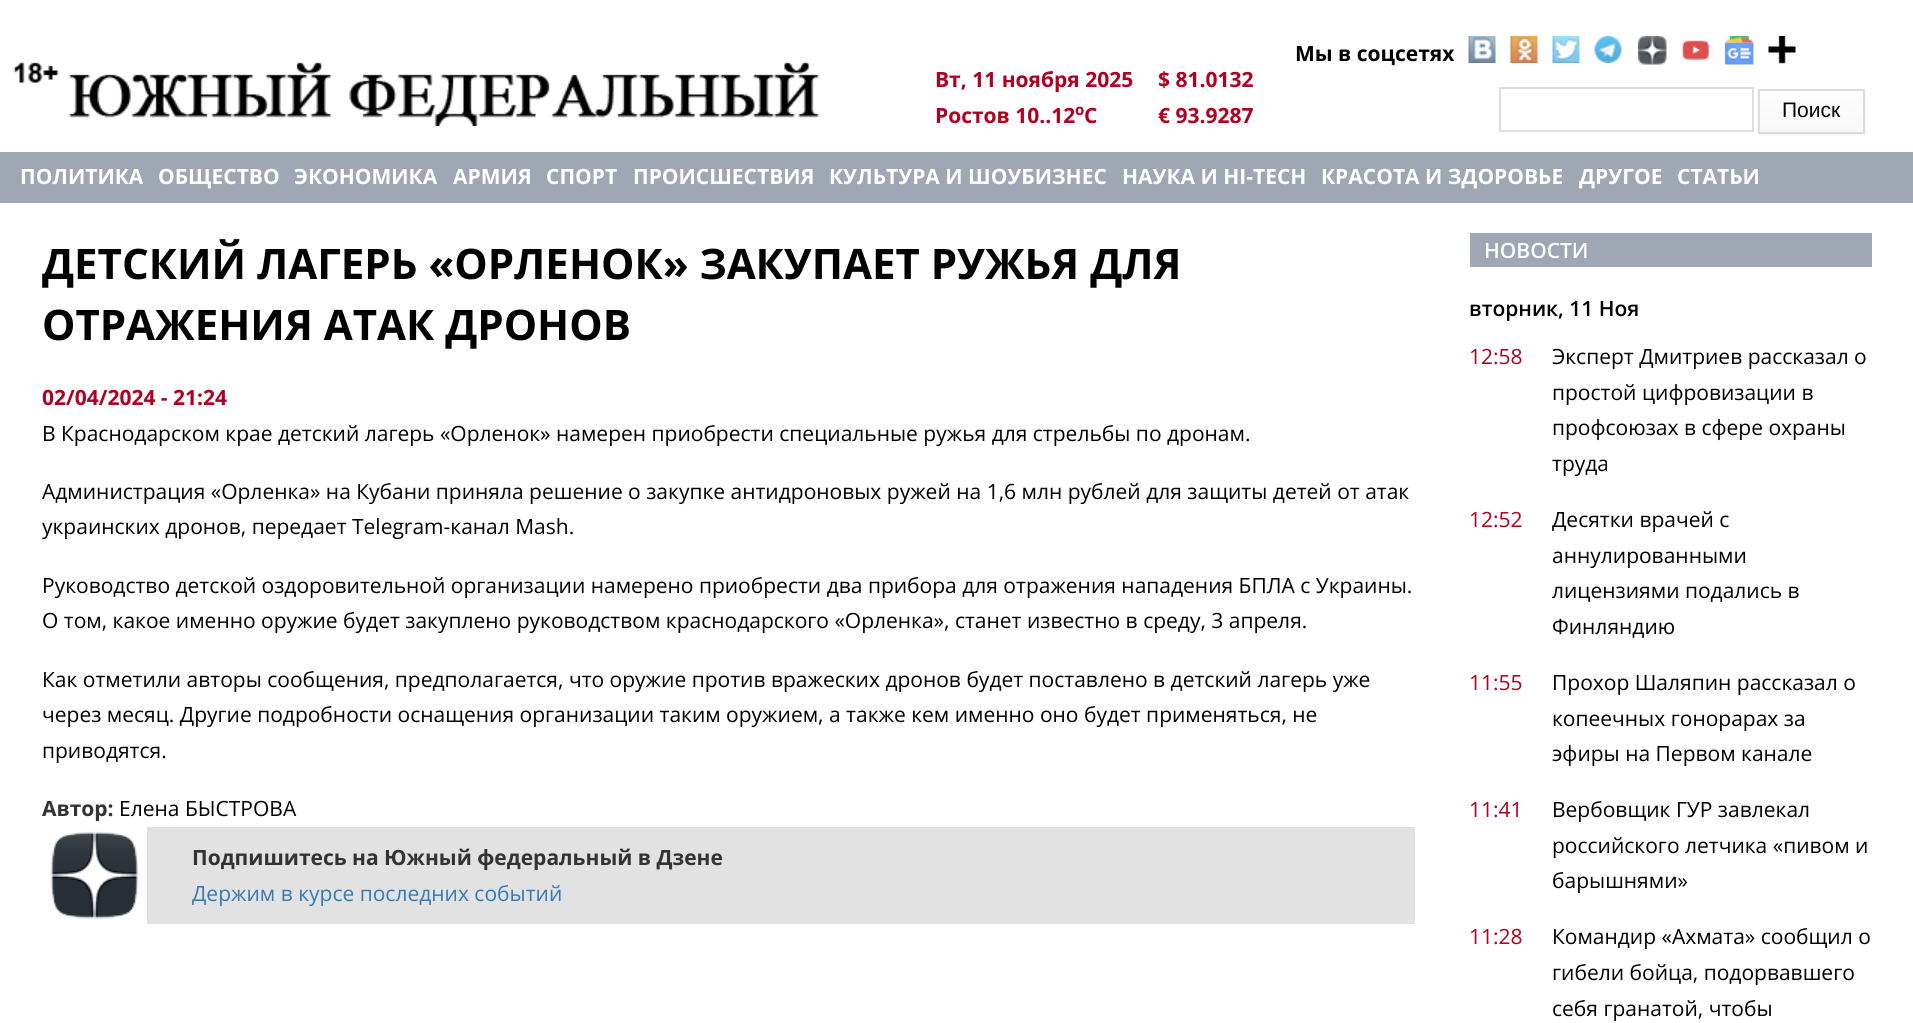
import math
import cairo

surface = cairo.ImageSurface(cairo.FORMAT_RGB24, 1913, 1023)
ctx = cairo.Context(surface)
options = cairo.FontOptions()
options.set_hint_metrics(cairo.HINT_METRICS_OFF)
options.set_hint_style(cairo.HINT_STYLE_NONE)
ctx.set_font_options(options)
ctx.set_miter_limit(4)


def set_color(code):
    ctx.set_source_rgb(*(v / 255 for v in bytes.fromhex(code[-6:])))


def draw_text(x, y, s, family, size, color, bold=False, italic=False):
    ctx.select_font_face(family, cairo.FONT_SLANT_ITALIC if italic else cairo.FONT_SLANT_NORMAL, cairo.FONT_WEIGHT_BOLD if bold else cairo.FONT_WEIGHT_NORMAL)
    ctx.set_font_size(size)
    set_color(color)
    ctx.move_to(x, y)
    ctx.show_text(s)


def fill_rect(x, y, w, h, color):
    set_color(color)
    ctx.rectangle(x, y, w, h)
    ctx.fill()


def rounded_rect(x, y, w, h, r):
    ctx.new_sub_path()
    for i, (u, v) in enumerate([(x + w - r, y + h - r), (x + r, y + h - r), (x + r, y + r), (x + w - r, y + r)]):
        ctx.arc(u, v, r, i * math.pi / 2, (i + 1) * math.pi / 2)
    ctx.close_path()


def draw_shadow(x, y, w, h, r, blur, alpha):
    ctx.push_group_with_content(cairo.CONTENT_ALPHA)
    ctx.set_operator(cairo.OPERATOR_SOURCE)
    for i in range(15, -16, -2):
        e = blur * i / 6
        if min(w, h) + 2 * e > 0:
            ctx.set_source_rgba(0, 0, 0, alpha * math.erfc((i - 1) / 8.5) / 2)
            rounded_rect(x - e, y - e, w + 2 * e, h + 2 * e, max(0, min(r + e + blur * .6, min(w, h) / 2 + e)))
            ctx.fill()
    ctx.mask(ctx.pop_group())


def draw_image(path, x, y, w, h):
    ctx.save()
    ctx.set_source_surface(cairo.ImageSurface.create_from_png(path), x, y)
    ctx.rectangle(x, y, w, h)
    ctx.fill()
    ctx.restore()


set_color("#ffffff")
ctx.paint()
draw_image("assets/img1.png", 13, 62, 807, 64)
draw_text(1295, 61, "Мы в соцсетях", "Open Sans", 21, "#000000", bold=True)
draw_image("assets/img2.png", 1468, 36, 28, 27)
draw_image("assets/img3.png", 1510, 36, 28, 27)
draw_image("assets/img4.png", 1552, 36, 28, 27)
draw_image("assets/img5.png", 1594, 36, 28, 27)
draw_image("assets/img6.png", 1638, 36, 29, 29)
draw_image("assets/img7.png", 1682, 40, 27, 20)
draw_image("assets/img8.png", 1725, 36, 29, 29)
draw_image("assets/img9.png", 1768, 36, 28, 28)
draw_text(935, 87, "Вт, 11 ноября 2025", "Open Sans", 21, "#b00021", bold=True)
draw_text(1158, 87, "$ 81.0132", "Open Sans", 21, "#b00021", bold=True)
draw_text(935, 123, "Ростов 10..12", "Open Sans", 21, "#b00021", bold=True)
draw_text(1075, 115, "o", "Open Sans", 15, "#b00021", bold=True)
draw_text(1084, 123, "C", "Open Sans", 21, "#b00021", bold=True)
draw_text(1158, 123, "€ 93.9287", "Open Sans", 21, "#b00021", bold=True)
ctx.rectangle(1500, 88, 253, 43)
set_color("#dddddd")
ctx.stroke()
set_color("#b4b4b4")
draw_shadow(1758, 90, 107, 45, 0, 1, 0.2)
gradient = cairo.LinearGradient(1811, 132, 1811, 90)
gradient.add_color_stop_rgba(0, 0.969, 0.969, 0.969, 1)
gradient.add_color_stop_rgba(1, 1, 1, 1, 1)
ctx.set_source(gradient)
ctx.rectangle(1760, 91, 103, 41)
ctx.fill()
ctx.rectangle(1759, 90, 105, 43)
set_color("#dddddd")
ctx.stroke()
draw_text(1782, 117, "Поиск", "Liberation Sans", 21, "#000000")
fill_rect(0, 152, 1913, 51, "#9ea7b3")
draw_text(20, 184, "ПОЛИТИКА", "Open Sans", 21, "#ffffff", bold=True)
draw_text(158, 184, "ОБЩЕСТВО", "Open Sans", 21, "#ffffff", bold=True)
draw_text(294, 184, "ЭКОНОМИКА", "Open Sans", 21, "#ffffff", bold=True)
draw_text(453, 184, "АРМИЯ", "Open Sans", 21, "#ffffff", bold=True)
draw_text(546, 184, "СПОРТ", "Open Sans", 21, "#ffffff", bold=True)
draw_text(633, 184, "ПРОИСШЕСТВИЯ", "Open Sans", 21, "#ffffff", bold=True)
draw_text(829, 184, "КУЛЬТУРА И ШОУБИЗНЕС", "Open Sans", 21, "#ffffff", bold=True)
draw_text(1122, 184, "НАУКА И HI-TECH", "Open Sans", 21, "#ffffff", bold=True)
draw_text(1321, 184, "КРАСОТА И ЗДОРОВЬЕ", "Open Sans", 21, "#ffffff", bold=True)
draw_text(1579, 184, "ДРУГОЕ", "Open Sans", 21, "#ffffff", bold=True)
draw_text(1677, 184, "СТАТЬИ", "Open Sans", 21, "#ffffff", bold=True)
draw_text(42, 279, "ДЕТСКИЙ ЛАГЕРЬ «ОРЛЕНОК» ЗАКУПАЕТ РУЖЬЯ ДЛЯ", "Open Sans", 42, "#000000", bold=True)
draw_text(42, 340, "ОТРАЖЕНИЯ АТАК ДРОНОВ", "Open Sans", 42, "#000000", bold=True)
draw_text(42, 405, "02/04/2024 - 21:24", "Open Sans", 21, "#b00021", bold=True)
draw_text(42, 441, "В Краснодарском крае детский лагерь «Орленок» намерен приобрести специальные ружья для стрельбы по дронам.", "Open Sans", 21, "#000000")
draw_text(42, 499, "Администрация «Орленка» на Кубани приняла решение о закупке антидроновых ружей на 1,6 млн рублей для защиты детей от атак", "Open Sans", 21, "#000000")
draw_text(42, 534, "украинских дронов, передает Telegram-канал Mash.", "Open Sans", 21, "#000000")
draw_text(42, 593, "Руководство детской оздоровительной организации намерено приобрести два прибора для отражения нападения БПЛА с Украины.", "Open Sans", 21, "#000000")
draw_text(42, 628, "О том, какое именно оружие будет закуплено руководством краснодарского «Орленка», станет известно в среду, 3 апреля.", "Open Sans", 21, "#000000")
draw_text(42, 687, "Как отметили авторы сообщения, предполагается, что оружие против вражеских дронов будет поставлено в детский лагерь уже", "Open Sans", 21, "#000000")
draw_text(42, 722, "через месяц. Другие подробности оснащения организации таким оружием, а также кем именно оно будет применяться, не", "Open Sans", 21, "#000000")
draw_text(42, 758, "приводятся.", "Open Sans", 21, "#000000")
draw_text(42, 816, "Автор:", "Open Sans", 21, "#333333", bold=True)
draw_text(119, 816, "Елена БЫСТРОВА", "Open Sans", 21, "#000000")
fill_rect(50, 827, 1365, 97, "#e2e2e2")
draw_image("assets/img10.png", 42, 827, 105, 97)
draw_text(192, 865, "Подпишитесь на Южный федеральный в Дзене", "Open Sans", 21, "#333333", bold=True)
draw_text(192, 901, "Держим в курсе последних событий", "Open Sans", 21, "#337ab7")
fill_rect(1470, 233, 402, 34, "#9ea7b3")
draw_text(1484, 258, "НОВОСТИ", "Open Sans SemiBold", 21, "#ffffff")
draw_text(1469, 316, "вторник, 11 Ноя", "Open Sans SemiBold", 21, "#000000")
draw_text(1469, 364, "12:58", "Open Sans", 21, "#b00021")
draw_text(1552, 364, "Эксперт Дмитриев рассказал о", "Open Sans", 21, "#000000")
draw_text(1552, 400, "простой цифровизации в", "Open Sans", 21, "#000000")
draw_text(1552, 435, "профсоюзах в сфере охраны", "Open Sans", 21, "#000000")
draw_text(1552, 471, "труда", "Open Sans", 21, "#000000")
draw_text(1469, 527, "12:52", "Open Sans", 21, "#b00021")
draw_text(1552, 527, "Десятки врачей с", "Open Sans", 21, "#000000")
draw_text(1552, 563, "аннулированными", "Open Sans", 21, "#000000")
draw_text(1552, 598, "лицензиями подались в", "Open Sans", 21, "#000000")
draw_text(1552, 634, "Финляндию", "Open Sans", 21, "#000000")
draw_text(1469, 690, "11:55", "Open Sans", 21, "#b00021")
draw_text(1552, 690, "Прохор Шаляпин рассказал о", "Open Sans", 21, "#000000")
draw_text(1552, 726, "копеечных гонорарах за", "Open Sans", 21, "#000000")
draw_text(1552, 761, "эфиры на Первом канале", "Open Sans", 21, "#000000")
draw_text(1469, 817, "11:41", "Open Sans", 21, "#b00021")
draw_text(1552, 817, "Вербовщик ГУР завлекал", "Open Sans", 21, "#000000")
draw_text(1552, 853, "российского летчика «пивом и", "Open Sans", 21, "#000000")
draw_text(1552, 888, "барышнями»", "Open Sans", 21, "#000000")
draw_text(1469, 944, "11:28", "Open Sans", 21, "#b00021")
draw_text(1552, 944, "Командир «Ахмата» сообщил о", "Open Sans", 21, "#000000")
draw_text(1552, 980, "гибели бойца, подорвавшего", "Open Sans", 21, "#000000")
draw_text(1552, 1016, "себя гранатой, чтобы", "Open Sans", 21, "#000000")
surface.write_to_png("output.png")
